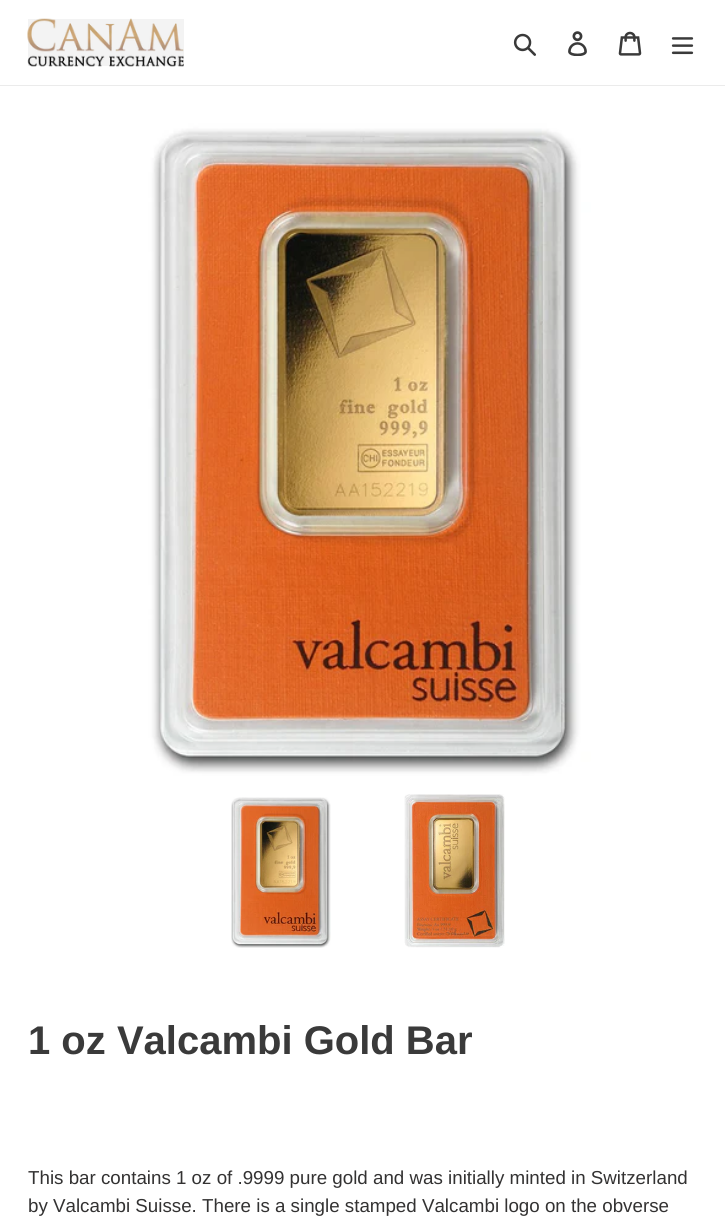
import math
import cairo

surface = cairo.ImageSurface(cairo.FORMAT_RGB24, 725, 1225)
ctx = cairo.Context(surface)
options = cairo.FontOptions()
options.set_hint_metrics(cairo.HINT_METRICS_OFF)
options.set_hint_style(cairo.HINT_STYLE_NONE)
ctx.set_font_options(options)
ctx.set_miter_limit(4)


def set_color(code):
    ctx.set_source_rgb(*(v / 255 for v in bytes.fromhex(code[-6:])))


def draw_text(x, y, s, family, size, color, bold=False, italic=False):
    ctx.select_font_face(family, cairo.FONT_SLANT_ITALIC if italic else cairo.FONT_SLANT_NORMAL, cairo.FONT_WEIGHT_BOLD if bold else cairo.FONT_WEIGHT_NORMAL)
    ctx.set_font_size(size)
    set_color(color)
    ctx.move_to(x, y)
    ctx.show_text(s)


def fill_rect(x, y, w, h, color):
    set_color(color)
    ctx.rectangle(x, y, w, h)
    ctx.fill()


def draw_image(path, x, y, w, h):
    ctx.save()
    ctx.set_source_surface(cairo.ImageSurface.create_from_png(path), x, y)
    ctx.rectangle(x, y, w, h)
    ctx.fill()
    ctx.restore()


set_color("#ffffff")
ctx.paint()
fill_rect(0, 85, 725, 1, "#ebebeb")
fill_rect(28, 19, 156, 47, "#f3f3f3")
draw_image("assets/img1.png", 27, 18, 157, 49)
draw_image("assets/img2.png", 513, 33, 23, 23)
draw_image("assets/img3.png", 568, 31, 19, 25)
draw_image("assets/img4.png", 618, 31, 24, 25)
draw_image("assets/img5.png", 671, 37, 23, 18)
draw_image("assets/img6.png", 31, 114, 663, 662)
draw_image("assets/img7.png", 231, 797, 100, 151)
draw_image("assets/img8.png", 404, 794, 101, 154)
draw_text(28, 1054, "1 oz Valcambi Gold Bar", "Liberation Sans", 40, "#3a3a3a", bold=True)
draw_text(28, 1184, "This bar contains 1 oz of .9999 pure gold and was initially minted in Switzerland", "Liberation Sans", 18.75, "#333232")
draw_text(28, 1212, "by Valcambi Suisse. There is a single stamped Valcambi logo on the obverse", "Liberation Sans", 18.75, "#333232")
surface.write_to_png("output.png")
